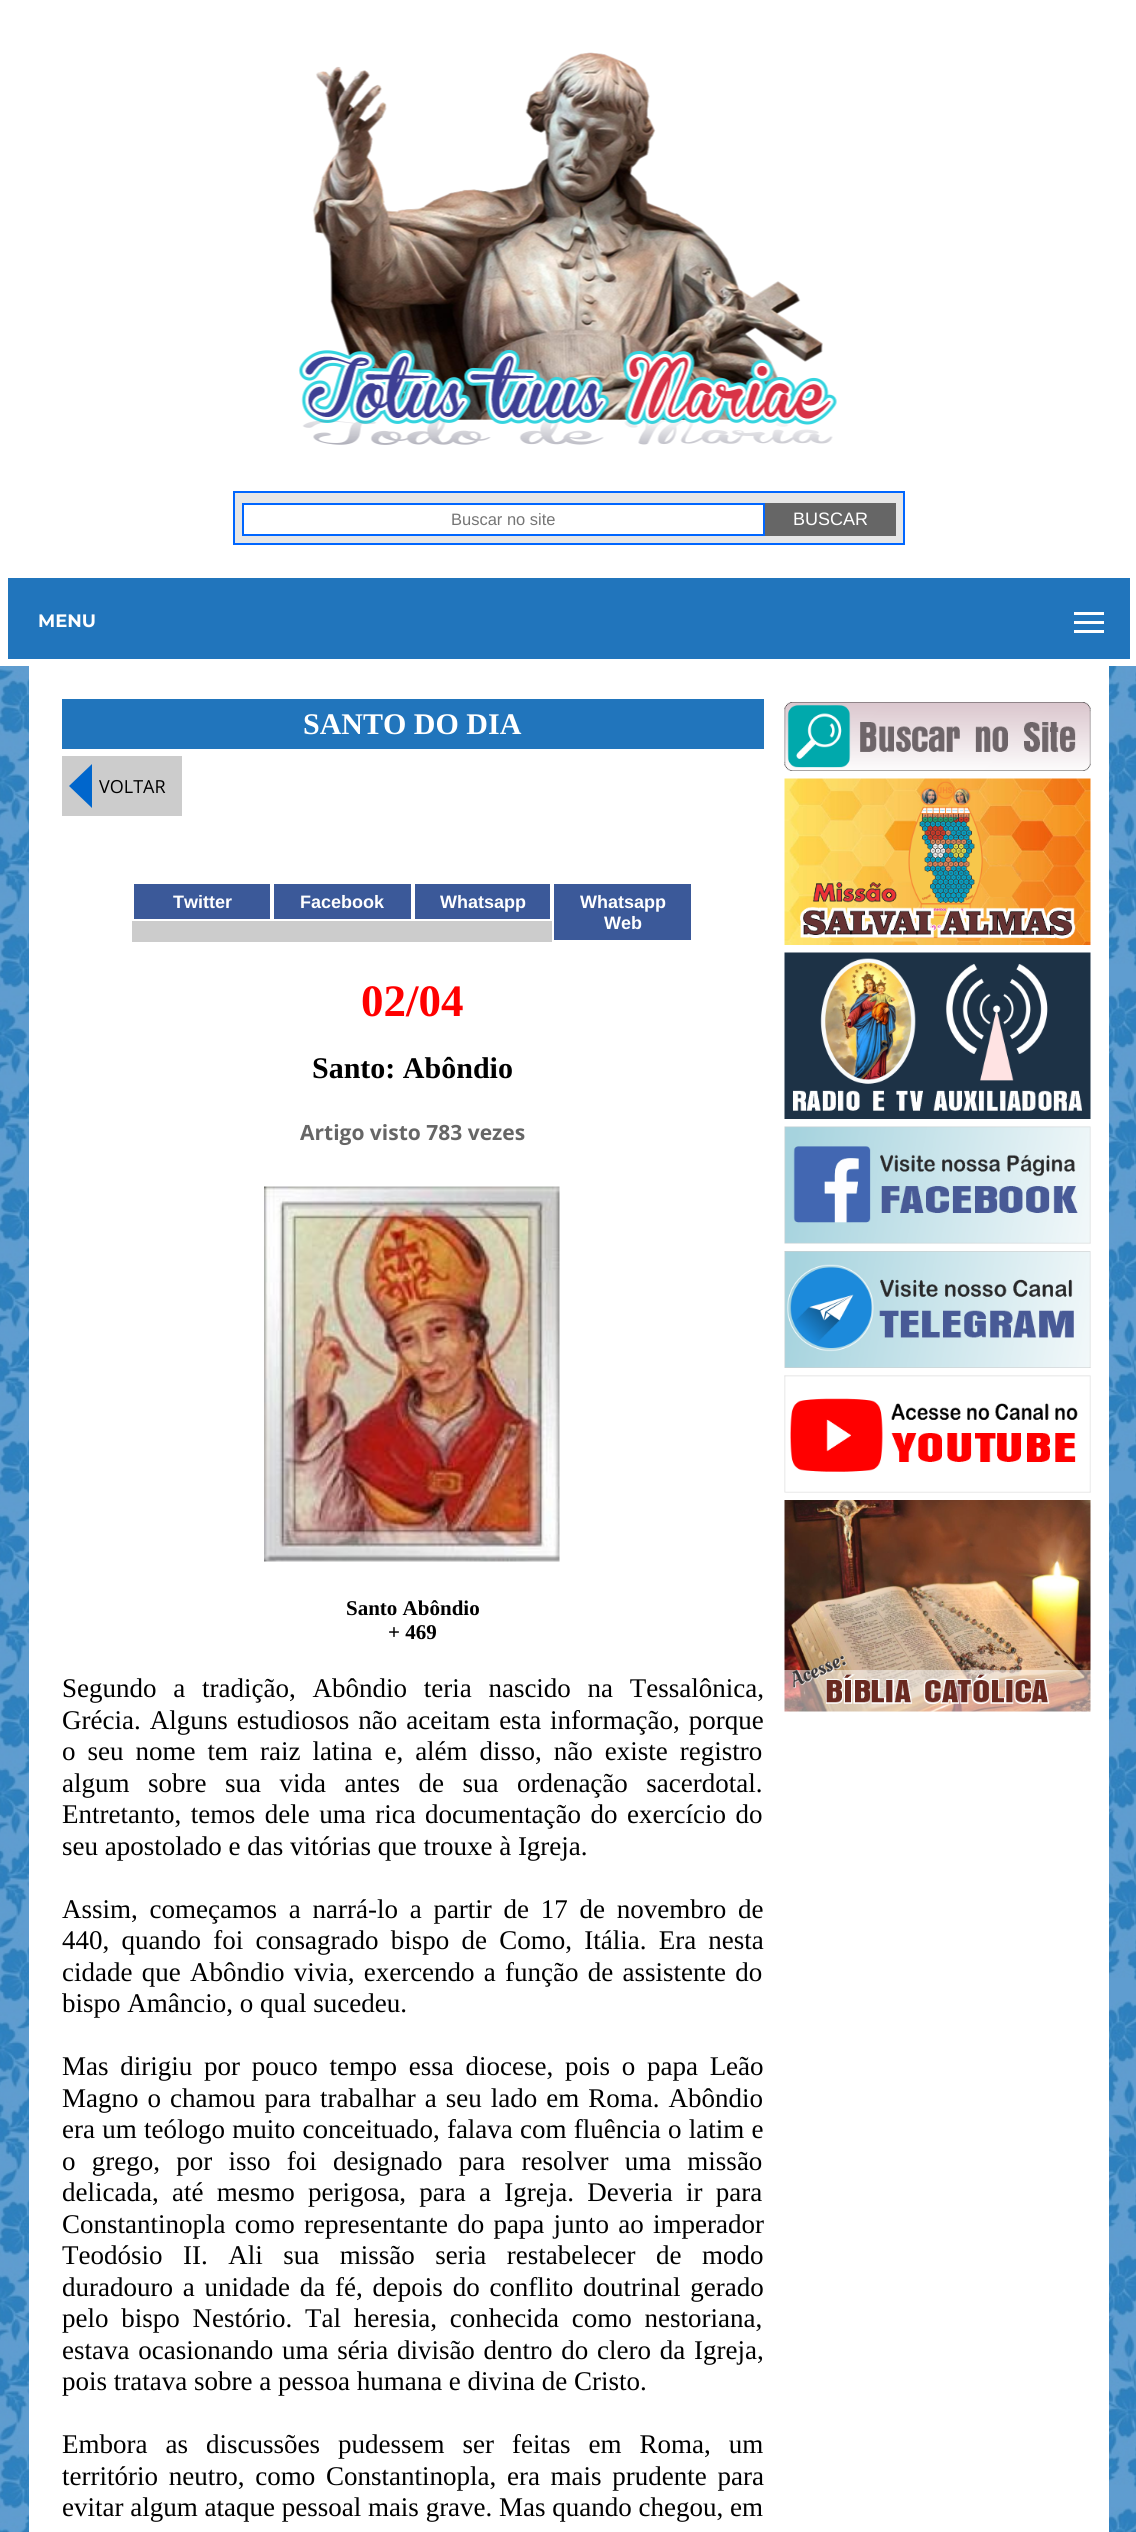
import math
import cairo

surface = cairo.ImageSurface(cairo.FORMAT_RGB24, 1136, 2532)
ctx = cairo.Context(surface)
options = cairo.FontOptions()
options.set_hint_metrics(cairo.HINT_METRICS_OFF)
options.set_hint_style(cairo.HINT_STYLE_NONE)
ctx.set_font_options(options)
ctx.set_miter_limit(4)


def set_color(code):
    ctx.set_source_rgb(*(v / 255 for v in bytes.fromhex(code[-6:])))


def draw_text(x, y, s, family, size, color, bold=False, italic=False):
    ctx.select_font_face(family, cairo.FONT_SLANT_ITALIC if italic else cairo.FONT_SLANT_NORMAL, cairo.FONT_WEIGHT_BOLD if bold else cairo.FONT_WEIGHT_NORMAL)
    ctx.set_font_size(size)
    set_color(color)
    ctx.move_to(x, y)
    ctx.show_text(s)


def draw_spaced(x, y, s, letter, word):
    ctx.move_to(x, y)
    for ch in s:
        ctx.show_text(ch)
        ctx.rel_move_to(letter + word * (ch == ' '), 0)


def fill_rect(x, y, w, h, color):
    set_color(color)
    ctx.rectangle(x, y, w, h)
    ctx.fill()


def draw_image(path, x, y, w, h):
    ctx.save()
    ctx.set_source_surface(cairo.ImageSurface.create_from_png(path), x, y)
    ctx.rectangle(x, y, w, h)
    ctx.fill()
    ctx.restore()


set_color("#ffffff")
ctx.paint()
draw_image("assets/img1.png", 0, 666, 1136, 1866)
draw_image("assets/img2.png", 298, 52, 539, 393)
set_color("#e6e6e6")
ctx.rectangle(234, 492, 670, 52)
ctx.fill_preserve()
set_color("#0066ff")
ctx.stroke()
set_color("#ffffff")
ctx.rectangle(243, 504, 521, 31)
ctx.fill_preserve()
set_color("#0066ff")
ctx.stroke()
draw_text(451, 525, "Buscar no site", "Liberation Sans", 16.5, "#757575")
fill_rect(765, 503, 131, 33, "#666666")
draw_text(793, 525, "BUSCAR", "Liberation Sans", 18, "#ffffff")
fill_rect(8, 578, 1122, 81, "#2175bc")
fill_rect(1074, 612, 30, 3, "#ffffff")
draw_text(38, 627, "MENU", "Montserrat", 18, "#ffffff", bold=True)
fill_rect(1074, 621, 30, 3, "#ffffff")
fill_rect(1074, 630, 30, 3, "#ffffff")
fill_rect(29, 666, 1080, 1866, "#ffffff")
fill_rect(62, 699, 702, 50, "#2175bc")
draw_text(303, 734, "SANTO DO DIA", "Liberation Serif", 30, "#ffffff", bold=True)
fill_rect(62, 756, 120, 60, "#cccccc")
set_color("#0066cc")
ctx.new_path()
ctx.move_to(92, 764)
ctx.line_to(92, 808)
ctx.line_to(69, 786)
ctx.close_path()
ctx.fill()
draw_text(99, 793, "VOLTAR", "Open Sans", 18, "#000000")
fill_rect(132, 921, 420, 21, "#cccccc")
fill_rect(134, 884, 136, 35, "#3b5999")
draw_text(173, 908, "Twitter", "Liberation Sans", 18, "#ffffff", bold=True)
fill_rect(274, 884, 137, 35, "#3b5999")
draw_text(300, 908, "Facebook", "Liberation Sans", 18, "#ffffff", bold=True)
fill_rect(415, 884, 135, 35, "#3b5999")
draw_text(440, 908, "Whatsapp", "Liberation Sans", 18, "#ffffff", bold=True)
fill_rect(554, 884, 137, 56, "#3b5999")
draw_text(580, 908, "Whatsapp", "Liberation Sans", 18, "#ffffff", bold=True)
draw_text(604, 929, "Web", "Liberation Sans", 18, "#ffffff", bold=True)
draw_text(361, 1016, "02/04", "Liberation Serif", 45, "#ff0000", bold=True)
draw_text(312, 1078, "Santo: Abôndio", "Liberation Serif", 30, "#000000", bold=True)
draw_text(300, 1140, "Artigo visto 783 vezes", "Open Sans", 21, "#666666", bold=True)
draw_image("assets/img3.png", 264, 1186, 296, 376)
draw_text(346, 1615, "Santo Abôndio", "Liberation Serif", 21, "#000000", bold=True)
draw_text(388, 1639, "+ 469", "Liberation Serif", 21, "#000000", bold=True)
ctx.select_font_face("Liberation Serif")
ctx.set_font_size(27)
draw_spaced(62, 1697, "Segundo a tradição, Abôndio teria nascido na Tessalônica,", 0, 10)
draw_spaced(62, 1729, "Grécia. Alguns estudiosos não aceitam esta informação, porque", 0, 2.25)
draw_spaced(62, 1760, "o seu nome tem raiz latina e, além disso, não existe registro", 0, 5.25)
draw_spaced(62, 1792, "algum sobre sua vida antes de sua ordenação sacerdotal.", 0, 11.75)
draw_spaced(62, 1823, "Entretanto, temos dele uma rica documentação do exercício do", 0, 2.75)
draw_text(62, 1855, "seu apostolado e das vitórias que trouxe à Igreja.", "Liberation Serif", 27, "#000000")
draw_spaced(62, 1918, "Assim, começamos a narrá-lo a partir de 17 de novembro de", 0, 5)
draw_spaced(62, 1949, "440, quando foi consagrado bispo de Como, Itália. Era nesta", 0, 5.5)
draw_spaced(62, 1981, "cidade que Abôndio vivia, exercendo a função de assistente do", 0, 2.5)
draw_text(62, 2012, "bispo Amâncio, o qual sucedeu.", "Liberation Serif", 27, "#000000")
draw_spaced(62, 2075, "Mas dirigiu por pouco tempo essa diocese, pois o papa Leão", 0, 5)
draw_spaced(62, 2107, "Magno o chamou para trabalhar a seu lado em Roma. Abôndio", 0, 2.25)
draw_spaced(62, 2138, "era um teólogo muito conceituado, falava com fluência o latim e", 0, 0.5)
draw_spaced(62, 2170, "o grego, por isso foi designado para resolver uma missão", 0, 9.5)
draw_spaced(62, 2201, "delicada, até mesmo perigosa, para a Igreja. Deveria ir para", 0, 6.5)
draw_spaced(62, 2233, "Constantinopla como representante do papa junto ao imperador", 0, 2.5)
draw_spaced(62, 2264, "Teodósio II. Ali sua missão seria restabelecer de modo", 0, 13.75)
draw_spaced(62, 2296, "duradouro a unidade da fé, depois do conflito doutrinal gerado", 0, 3)
draw_spaced(62, 2327, "pelo bispo Nestório. Tal heresia, conhecida como nestoriana,", 0, 6)
draw_spaced(62, 2359, "estava ocasionando uma séria divisão dentro do clero da Igreja,", 0, 2)
draw_text(62, 2390, "pois tratava sobre a pessoa humana e divina de Cristo.", "Liberation Serif", 27, "#000000")
draw_spaced(62, 2453, "Embora as discussões pudessem ser feitas em Roma, um", 0, 11.25)
draw_spaced(62, 2485, "território neutro, como Constantinopla, era mais prudente para", 0, 4)
draw_text(62, 2516, "evitar algum ataque pessoal mais grave. Mas quando chegou, em", "Liberation Serif", 27, "#000000")
draw_image("assets/img4.png", 784, 702, 307, 69)
draw_image("assets/img5.png", 784, 778, 307, 167)
draw_image("assets/img6.png", 784, 952, 307, 167)
draw_image("assets/img7.png", 784, 1126, 307, 118)
draw_image("assets/img8.png", 784, 1251, 307, 117)
draw_image("assets/img9.png", 784, 1375, 307, 118)
draw_image("assets/img10.png", 784, 1500, 307, 212)
surface.write_to_png("output.png")
